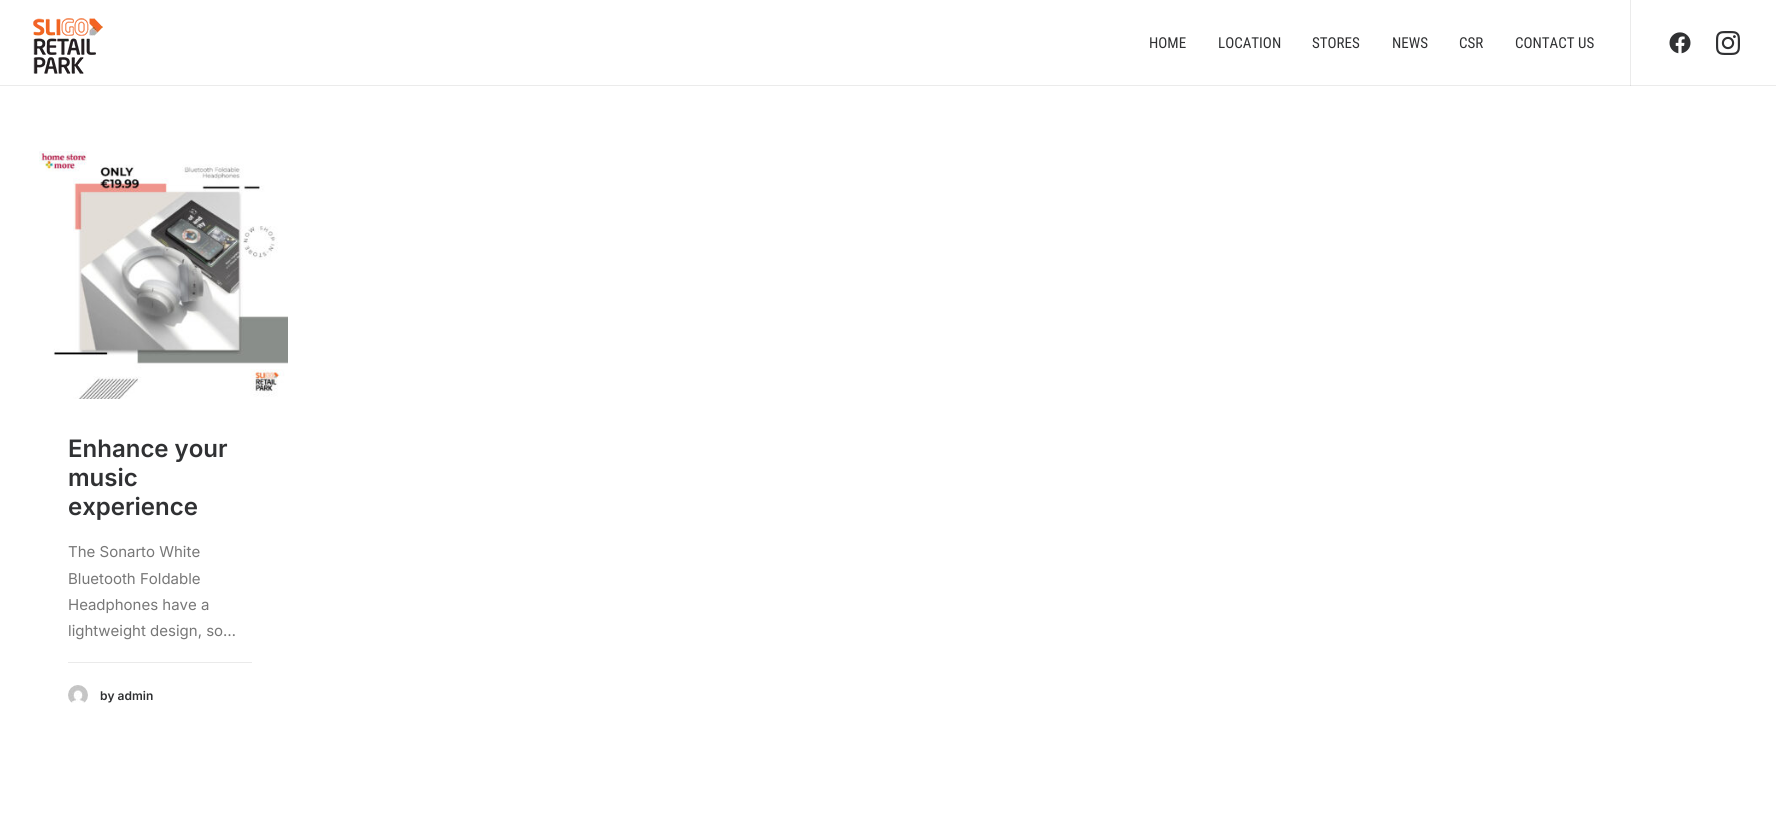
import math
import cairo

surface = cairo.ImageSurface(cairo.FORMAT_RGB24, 1780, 827)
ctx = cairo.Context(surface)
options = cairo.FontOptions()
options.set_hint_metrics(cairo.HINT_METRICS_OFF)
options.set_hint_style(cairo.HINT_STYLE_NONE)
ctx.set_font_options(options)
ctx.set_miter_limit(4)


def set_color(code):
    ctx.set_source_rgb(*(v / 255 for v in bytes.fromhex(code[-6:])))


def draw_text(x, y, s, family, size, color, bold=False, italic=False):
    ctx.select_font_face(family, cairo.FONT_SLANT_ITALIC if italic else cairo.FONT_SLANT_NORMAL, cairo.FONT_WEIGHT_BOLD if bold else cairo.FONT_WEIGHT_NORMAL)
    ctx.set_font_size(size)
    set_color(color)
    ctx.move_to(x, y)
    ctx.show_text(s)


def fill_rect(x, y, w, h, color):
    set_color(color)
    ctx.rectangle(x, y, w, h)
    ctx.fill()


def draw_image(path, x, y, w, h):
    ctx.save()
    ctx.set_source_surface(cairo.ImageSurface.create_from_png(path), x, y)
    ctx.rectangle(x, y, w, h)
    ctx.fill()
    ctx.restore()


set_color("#ffffff")
ctx.paint()
draw_image("assets/img1.png", 33, 18, 70, 56)
draw_text(1149, 48, "HOME", "Roboto Condensed", 15, "#303133")
draw_text(1218, 48, "LOCATION", "Roboto Condensed", 15, "#303133")
draw_text(1312, 48, "STORES", "Roboto Condensed", 15, "#303133")
draw_text(1392, 48, "NEWS", "Roboto Condensed", 15, "#303133")
draw_text(1459, 48, "CSR", "Roboto Condensed", 15, "#303133")
draw_text(1515, 48, "CONTACT US", "Roboto Condensed", 15, "#303133")
draw_image("assets/img2.png", 1669, 32, 22, 22)
draw_image("assets/img3.png", 1716, 31, 24, 24)
fill_rect(1630, 0, 1, 86, "#ebebeb")
fill_rect(0, 85, 1776, 1, "#ebebeb")
fill_rect(1630, 85, 1, 1, "#dadada")
draw_image("assets/img4.png", 39, 151, 249, 248)
draw_text(68, 457, "Enhance your", "Inter SemiBold", 24, "#303133")
draw_text(68, 486, "music", "Inter SemiBold", 24, "#303133")
draw_text(68, 515, "experience", "Inter SemiBold", 24, "#303133")
draw_text(68, 557, "The Sonarto White", "Inter", 15, "#777777")
draw_text(68, 584, "Bluetooth Foldable", "Inter", 15, "#777777")
draw_text(68, 610, "Headphones have a", "Inter", 15, "#777777")
draw_text(68, 636, "lightweight design, so…", "Inter", 15, "#777777")
fill_rect(68, 662, 184, 1, "#eaeaea")
draw_image("assets/img5.png", 68, 685, 20, 18)
draw_text(100, 700, "by admin", "Inter SemiBold", 12, "#303133")
surface.write_to_png("output.png")
